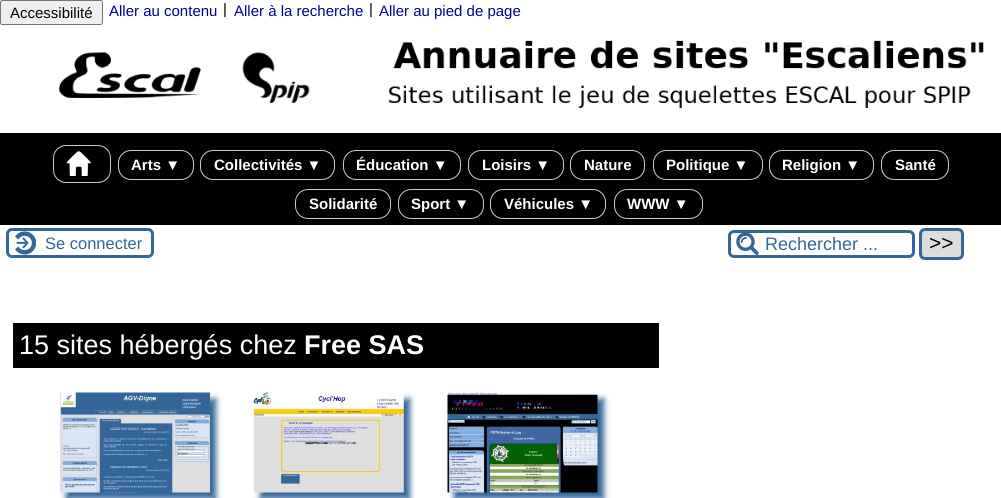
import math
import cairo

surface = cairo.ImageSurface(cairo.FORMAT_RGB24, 1001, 498)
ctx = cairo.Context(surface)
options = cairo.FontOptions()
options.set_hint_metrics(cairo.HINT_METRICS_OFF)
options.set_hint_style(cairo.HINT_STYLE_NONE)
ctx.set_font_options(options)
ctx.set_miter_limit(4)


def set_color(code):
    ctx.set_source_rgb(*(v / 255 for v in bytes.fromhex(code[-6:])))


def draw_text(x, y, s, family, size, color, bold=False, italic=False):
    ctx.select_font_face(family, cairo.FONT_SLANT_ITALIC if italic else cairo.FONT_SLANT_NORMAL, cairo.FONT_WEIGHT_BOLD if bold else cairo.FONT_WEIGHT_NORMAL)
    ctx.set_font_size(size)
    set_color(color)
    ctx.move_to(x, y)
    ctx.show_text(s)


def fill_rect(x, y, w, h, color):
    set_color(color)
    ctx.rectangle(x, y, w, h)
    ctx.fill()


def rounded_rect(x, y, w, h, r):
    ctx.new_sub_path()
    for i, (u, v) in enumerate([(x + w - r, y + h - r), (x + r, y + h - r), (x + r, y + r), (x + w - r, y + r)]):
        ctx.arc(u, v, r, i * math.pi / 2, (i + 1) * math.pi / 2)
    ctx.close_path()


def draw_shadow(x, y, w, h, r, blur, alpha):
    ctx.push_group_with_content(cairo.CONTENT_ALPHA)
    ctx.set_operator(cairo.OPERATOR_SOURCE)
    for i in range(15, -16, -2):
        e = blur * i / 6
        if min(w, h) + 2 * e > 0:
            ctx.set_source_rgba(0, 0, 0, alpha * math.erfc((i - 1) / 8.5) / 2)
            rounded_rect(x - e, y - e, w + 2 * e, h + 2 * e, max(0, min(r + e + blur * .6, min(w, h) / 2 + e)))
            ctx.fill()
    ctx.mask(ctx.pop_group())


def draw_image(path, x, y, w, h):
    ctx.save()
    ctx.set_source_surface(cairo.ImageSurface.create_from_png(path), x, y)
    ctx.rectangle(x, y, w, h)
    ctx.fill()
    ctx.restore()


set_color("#ffffff")
ctx.paint()
set_color("#efefef")
rounded_rect(0.5, 0.5, 102, 24, 2)
ctx.fill_preserve()
set_color("#767676")
ctx.set_line_width(1)
ctx.stroke()
draw_text(10, 18, "Accessibilité", "Liberation Sans", 15, "#000000")
draw_text(109, 16, "Aller au contenu", "Liberation Sans", 15, "#000099")
draw_text(223, 14, "|", "Liberation Sans", 15, "#000000")
draw_text(234, 16, "Aller à la recherche", "Liberation Sans", 15, "#000099")
draw_text(369, 14, "|", "Liberation Sans", 15, "#000000")
draw_text(379, 16, "Aller au pied de page", "Liberation Sans", 15, "#000099")
draw_image("assets/img1.png", 59, 40, 925, 68)
fill_rect(0, 133, 1001, 92, "#000000")
rounded_rect(53.5, 145.5, 57, 37, 12.5)
set_color("#cccccc")
ctx.stroke()
draw_image("assets/img2.png", 66, 151, 25, 25)
rounded_rect(118.5, 150.5, 75, 29, 12.5)
ctx.stroke()
draw_text(131, 170, "Arts ▼", "Liberation Sans", 15, "#ffffff", bold=True)
rounded_rect(200.5, 150.5, 134, 29, 12.5)
set_color("#cccccc")
ctx.stroke()
draw_text(214, 170, "Collectivités ▼", "Liberation Sans", 15, "#ffffff", bold=True)
rounded_rect(343.5, 150.5, 117, 29, 12.5)
set_color("#cccccc")
ctx.stroke()
draw_text(356, 170, "Éducation ▼", "Liberation Sans", 15, "#ffffff", bold=True)
rounded_rect(468.5, 150.5, 95, 29, 12.5)
set_color("#cccccc")
ctx.stroke()
draw_text(482, 170, "Loisirs ▼", "Liberation Sans", 15, "#ffffff", bold=True)
rounded_rect(570.5, 150.5, 74, 29, 12.5)
set_color("#cccccc")
ctx.stroke()
draw_text(584, 170, "Nature", "Liberation Sans", 15, "#ffffff", bold=True)
rounded_rect(653.5, 150.5, 109, 29, 12.5)
set_color("#cccccc")
ctx.stroke()
draw_text(666, 170, "Politique ▼", "Liberation Sans", 15, "#ffffff", bold=True)
rounded_rect(769.5, 150.5, 104, 29, 12.5)
set_color("#cccccc")
ctx.stroke()
draw_text(782, 170, "Religion ▼", "Liberation Sans", 15, "#ffffff", bold=True)
rounded_rect(881.5, 150.5, 67, 29, 12.5)
set_color("#cccccc")
ctx.stroke()
draw_text(895, 170, "Santé", "Liberation Sans", 15, "#ffffff", bold=True)
rounded_rect(295.5, 189.5, 95, 29, 12.5)
set_color("#cccccc")
ctx.stroke()
draw_text(309, 209, "Solidarité", "Liberation Sans", 15, "#ffffff", bold=True)
rounded_rect(398.5, 189.5, 85, 29, 12.5)
set_color("#cccccc")
ctx.stroke()
draw_text(411, 209, "Sport ▼", "Liberation Sans", 15, "#ffffff", bold=True)
rounded_rect(490.5, 189.5, 115, 29, 12.5)
set_color("#cccccc")
ctx.stroke()
draw_text(504, 209, "Véhicules ▼", "Liberation Sans", 15, "#ffffff", bold=True)
rounded_rect(614.5, 189.5, 88, 29, 12.5)
set_color("#cccccc")
ctx.stroke()
draw_text(627, 209, "WWW ▼", "Liberation Sans", 15, "#ffffff", bold=True)
draw_image("assets/img3.png", 15, 231, 21, 24)
rounded_rect(7.5, 229.5, 145, 27, 4.5)
set_color("#336699")
ctx.set_line_width(3)
ctx.stroke()
draw_text(45, 249, "Se connecter", "Liberation Sans", 16.5, "#336699")
draw_image("assets/img4.png", 736, 233, 23, 22)
rounded_rect(729.5, 231.5, 184, 25, 4.5)
ctx.stroke()
draw_text(765, 250, "Rechercher ...", "Liberation Sans", 18, "#336699")
set_color("#dddddd")
rounded_rect(920.5, 229.5, 42, 29, 4.5)
ctx.fill_preserve()
set_color("#336699")
ctx.stroke()
draw_text(929, 250, ">>", "Liberation Sans", 21, "#000000")
fill_rect(13, 323, 646, 45, "#000000")
draw_text(19, 354, "15 sites hébergés chez", "Liberation Sans", 27, "#ffffff")
draw_text(304, 354, "Free SAS", "Liberation Sans", 27, "#ffffff", bold=True)
set_color("#336699")
draw_shadow(66, 399, 150, 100, 0, 3, 1)
draw_image("assets/img5.png", 60, 392, 150, 101)
draw_shadow(260, 399, 150, 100, 0, 3, 1)
draw_image("assets/img6.png", 253, 392, 151, 101)
draw_shadow(454, 399, 150, 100, 0, 3, 1)
draw_image("assets/img7.png", 447, 392, 151, 101)
surface.write_to_png("output.png")
